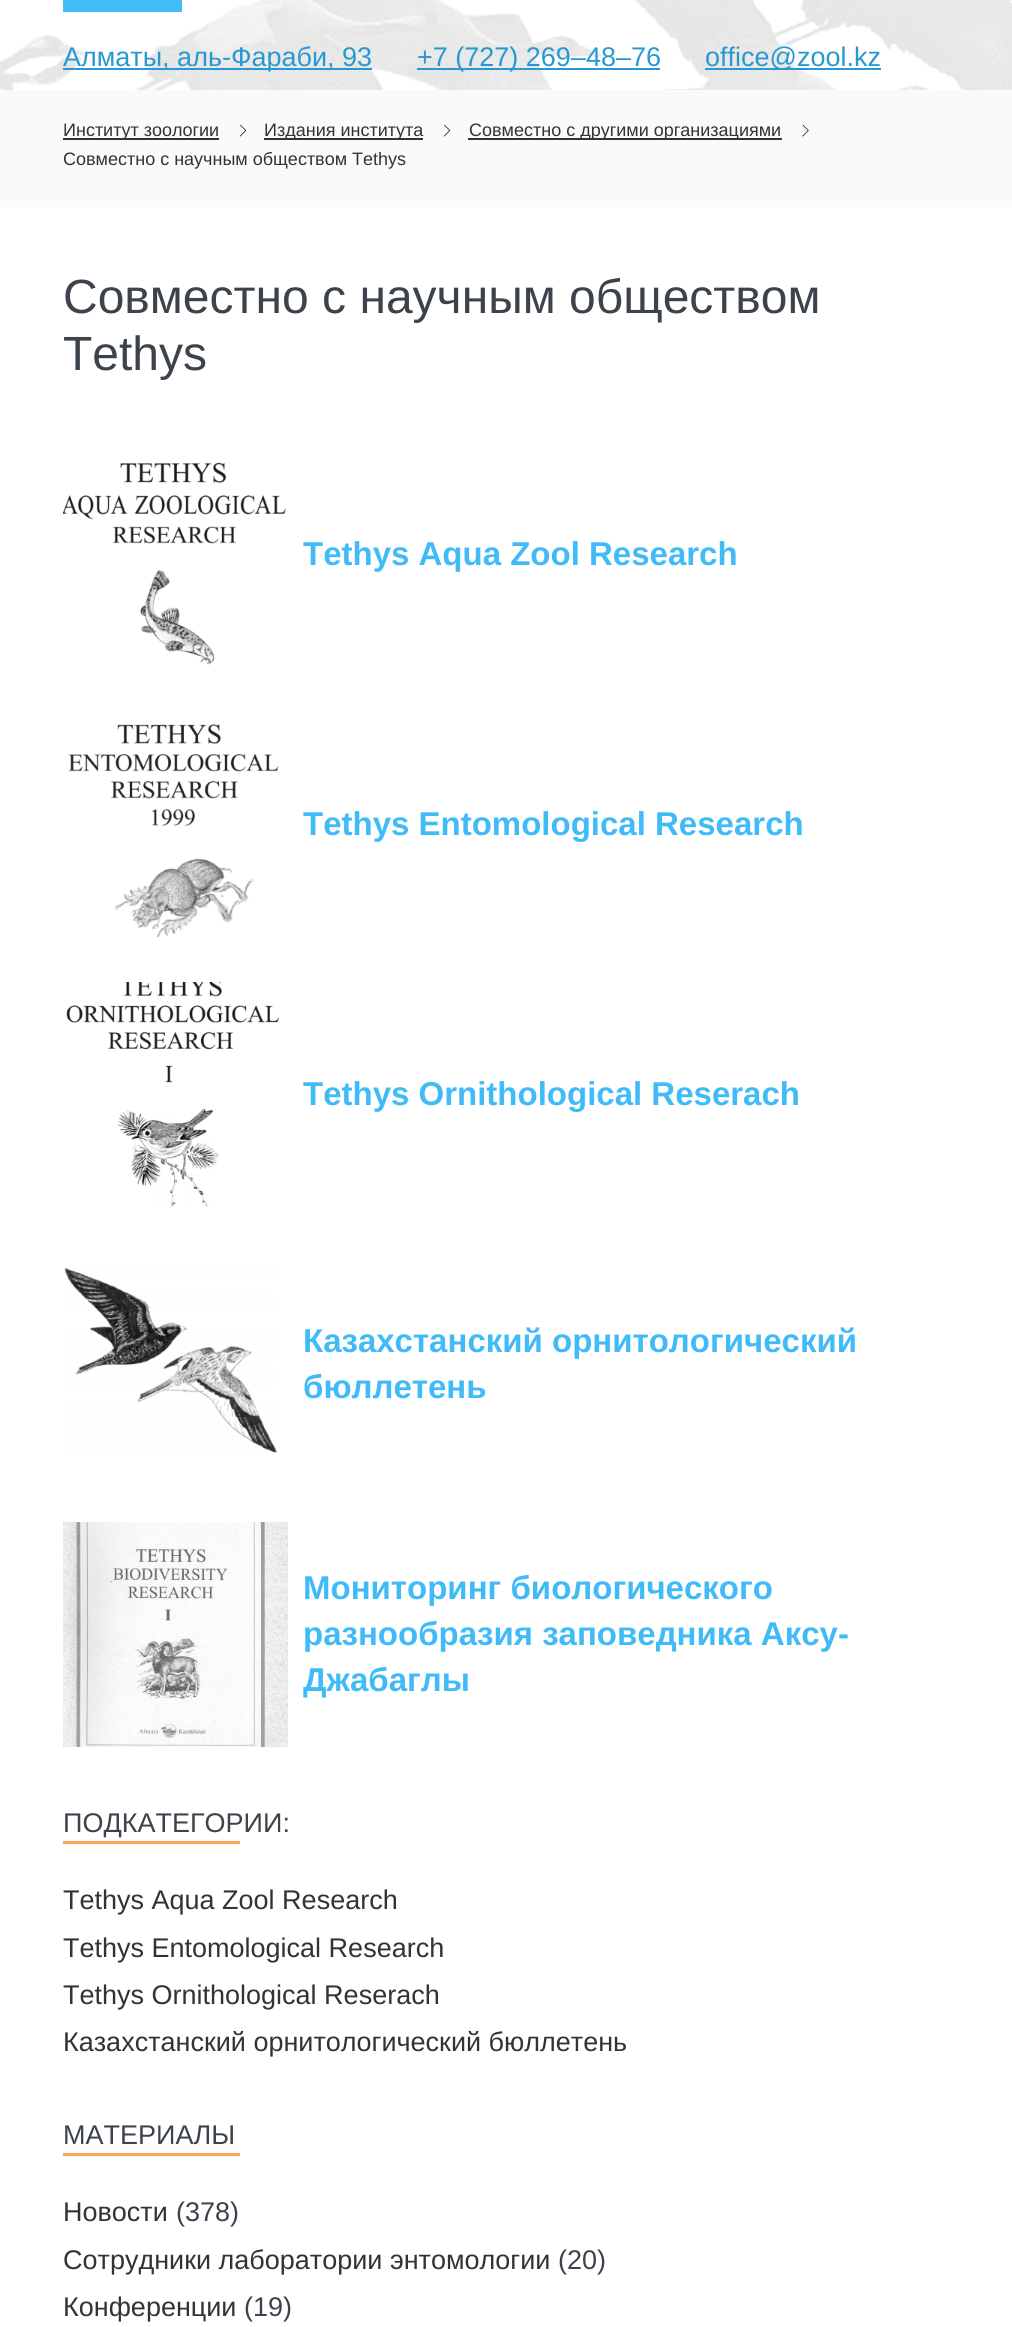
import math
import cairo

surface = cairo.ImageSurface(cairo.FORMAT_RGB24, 1012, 2327)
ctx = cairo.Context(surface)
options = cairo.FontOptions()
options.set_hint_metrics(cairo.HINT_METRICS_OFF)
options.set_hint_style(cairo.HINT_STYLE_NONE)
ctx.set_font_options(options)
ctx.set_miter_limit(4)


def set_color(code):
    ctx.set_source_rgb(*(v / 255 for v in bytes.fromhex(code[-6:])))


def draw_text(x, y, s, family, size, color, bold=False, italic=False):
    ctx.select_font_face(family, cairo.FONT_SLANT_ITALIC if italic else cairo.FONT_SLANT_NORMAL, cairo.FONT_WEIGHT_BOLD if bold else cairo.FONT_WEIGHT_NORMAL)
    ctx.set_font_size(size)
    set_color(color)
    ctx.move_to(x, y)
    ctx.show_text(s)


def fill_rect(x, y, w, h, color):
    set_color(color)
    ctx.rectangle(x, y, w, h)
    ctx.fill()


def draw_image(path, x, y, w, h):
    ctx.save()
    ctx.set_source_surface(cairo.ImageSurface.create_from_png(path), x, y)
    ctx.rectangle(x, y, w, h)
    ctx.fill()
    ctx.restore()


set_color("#ffffff")
ctx.paint()
draw_image("assets/img1.png", 0, 0, 1012, 90)
fill_rect(63, 0, 119, 12, "#44bcf8")
fill_rect(63, 68, 309, 2, "#2899d0")
draw_text(63, 66, "Алматы, аль-Фараби, 93", "Liberation Sans", 27, "#2899d0")
fill_rect(417, 68, 243, 2, "#2899d0")
draw_text(417, 66, "+7 (727) 269‒48‒76", "Liberation Sans", 27, "#2899d0")
fill_rect(705, 68, 176, 2, "#2899d0")
draw_text(705, 66, "office@zool.kz", "Liberation Sans", 27, "#2899d0")
fill_rect(0, 90, 1012, 117, "#fafafa")
fill_rect(63, 138, 156, 2, "#333333")
draw_text(63, 136, "Институт зоологии", "Liberation Sans", 18, "#333333")
draw_image("assets/img2.png", 239, 125, 8, 12)
fill_rect(264, 138, 159, 2, "#333333")
draw_text(264, 136, "Издания института", "Liberation Sans", 18, "#333333")
draw_image("assets/img2.png", 443, 125, 8, 12)
fill_rect(468, 138, 314, 2, "#333333")
draw_text(469, 136, "Совместно с другими организациями", "Liberation Sans", 18, "#333333")
draw_image("assets/img3.png", 802, 125, 7, 12)
draw_text(63, 165, "Совместно с научным обществом Tethys", "Liberation Sans", 18, "#333333")
draw_text(63, 313, "Совместно с научным обществом", "Liberation Sans", 48, "#3c434b")
draw_text(63, 370, "Tethys", "Liberation Sans", 48, "#3c434b")
draw_image("assets/img4.png", 63, 462, 223, 203)
draw_text(303, 565, "Tethys Aqua Zool Research", "Liberation Sans", 33, "#40bbf8", bold=True)
draw_image("assets/img5.png", 68, 724, 211, 213)
draw_text(303, 835, "Tethys Entomological Research", "Liberation Sans", 33, "#40bbf8", bold=True)
draw_image("assets/img6.png", 66, 982, 213, 225)
draw_text(303, 1105, "Tethys Ornithological Reserach", "Liberation Sans", 33, "#40bbf8", bold=True)
draw_image("assets/img7.png", 64, 1268, 214, 185)
draw_text(303, 1352, "Казахстанский орнитологический", "Liberation Sans", 33, "#40bbf8", bold=True)
draw_text(303, 1398, "бюллетень", "Liberation Sans", 33, "#40bbf8", bold=True)
draw_image("assets/img8.png", 63, 1522, 225, 225)
draw_text(303, 1599, "Мониторинг биологического", "Liberation Sans", 33, "#40bbf8", bold=True)
draw_text(303, 1645, "разнообразия заповедника Аксу-", "Liberation Sans", 33, "#40bbf8", bold=True)
draw_text(303, 1691, "Джабаглы", "Liberation Sans", 33, "#40bbf8", bold=True)
draw_text(63, 1832, "ПОДКАТЕГОРИИ:", "Liberation Sans", 27, "#3c434b")
fill_rect(63, 1841, 177, 3, "#ffa653")
draw_text(63, 1909, "Tethys Aqua Zool Research", "Liberation Sans", 27, "#333333")
draw_text(63, 1957, "Tethys Entomological Research", "Liberation Sans", 27, "#333333")
draw_text(63, 2004, "Tethys Ornithological Reserach", "Liberation Sans", 27, "#333333")
draw_text(63, 2051, "Казахстанский орнитологический бюллетень", "Liberation Sans", 27, "#333333")
draw_text(63, 2144, "МАТЕРИАЛЫ", "Liberation Sans", 27, "#3c434b")
fill_rect(63, 2153, 177, 3, "#ffa653")
draw_text(63, 2221, "Новости", "Liberation Sans", 27, "#333333")
draw_text(176, 2221, "(378)", "Liberation Sans", 27, "#3c434b")
draw_text(63, 2269, "Сотрудники лаборатории энтомологии", "Liberation Sans", 27, "#333333")
draw_text(558, 2269, "(20)", "Liberation Sans", 27, "#3c434b")
draw_text(63, 2316, "Конференции", "Liberation Sans", 27, "#333333")
draw_text(244, 2316, "(19)", "Liberation Sans", 27, "#3c434b")
surface.write_to_png("output.png")
